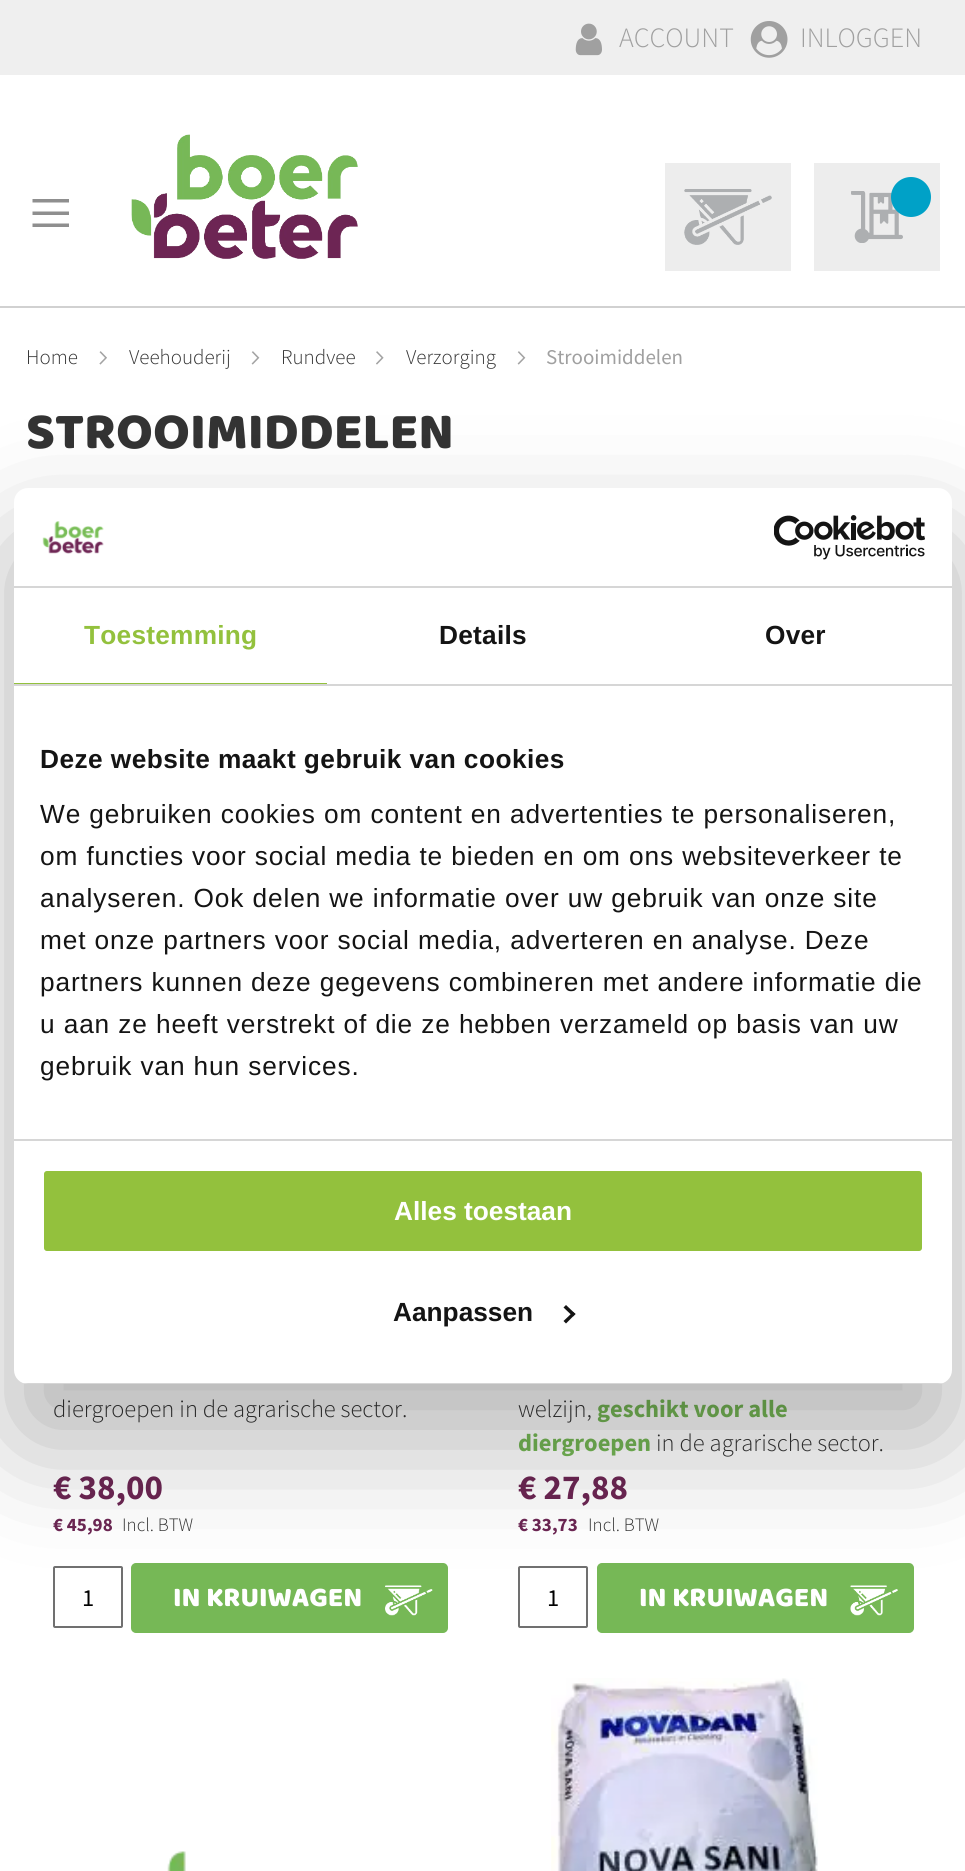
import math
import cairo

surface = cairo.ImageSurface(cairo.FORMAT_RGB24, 965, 1871)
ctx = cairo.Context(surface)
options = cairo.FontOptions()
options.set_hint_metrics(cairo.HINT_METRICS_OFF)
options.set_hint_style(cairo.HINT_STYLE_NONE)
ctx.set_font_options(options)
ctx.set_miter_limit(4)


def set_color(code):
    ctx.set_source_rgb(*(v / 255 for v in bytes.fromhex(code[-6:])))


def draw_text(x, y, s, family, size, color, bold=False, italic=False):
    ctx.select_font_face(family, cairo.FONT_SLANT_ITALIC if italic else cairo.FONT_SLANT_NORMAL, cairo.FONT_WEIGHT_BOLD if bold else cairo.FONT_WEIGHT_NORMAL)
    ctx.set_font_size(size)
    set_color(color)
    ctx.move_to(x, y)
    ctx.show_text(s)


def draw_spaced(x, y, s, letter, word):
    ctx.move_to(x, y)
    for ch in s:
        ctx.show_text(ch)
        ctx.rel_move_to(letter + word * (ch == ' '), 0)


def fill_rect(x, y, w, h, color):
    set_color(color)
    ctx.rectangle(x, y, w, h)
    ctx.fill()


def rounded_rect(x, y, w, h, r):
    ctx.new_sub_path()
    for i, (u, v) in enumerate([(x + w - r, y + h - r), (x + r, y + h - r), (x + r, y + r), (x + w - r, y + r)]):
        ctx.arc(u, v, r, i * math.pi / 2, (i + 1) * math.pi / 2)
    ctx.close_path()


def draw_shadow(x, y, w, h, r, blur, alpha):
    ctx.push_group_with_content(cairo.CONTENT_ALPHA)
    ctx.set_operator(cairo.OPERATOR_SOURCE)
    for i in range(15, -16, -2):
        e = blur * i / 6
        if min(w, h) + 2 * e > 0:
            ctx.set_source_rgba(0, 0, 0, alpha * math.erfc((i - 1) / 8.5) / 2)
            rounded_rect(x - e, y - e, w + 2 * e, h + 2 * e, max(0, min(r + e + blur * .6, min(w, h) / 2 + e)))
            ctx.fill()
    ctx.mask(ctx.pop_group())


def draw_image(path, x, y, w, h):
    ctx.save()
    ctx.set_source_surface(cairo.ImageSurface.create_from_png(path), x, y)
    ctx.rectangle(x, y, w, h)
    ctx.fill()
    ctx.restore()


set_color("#ffffff")
ctx.paint()
fill_rect(0, 306, 965, 2, "#d1d1d1")
fill_rect(0, 0, 965, 75, "#efefef")
draw_image("assets/img1.png", 575, 23, 27, 33)
draw_text(619, 47, "ACCOUNT", "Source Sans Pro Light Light", 28, "#a0a0a0")
draw_image("assets/img2.png", 750, 21, 38, 37)
draw_text(800, 47, "INLOGGEN", "Source Sans Pro Light Light", 28, "#a0a0a0")
set_color("#8f8f8f")
ctx.new_path()
ctx.move_to(32.5, 199)
ctx.line_to(32.5, 202.5)
ctx.line_to(69, 202.5)
ctx.line_to(69, 199)
ctx.close_path()
ctx.move_to(32.5, 215)
ctx.line_to(69, 215)
ctx.line_to(69, 211.5)
ctx.line_to(32.5, 211.5)
ctx.close_path()
ctx.move_to(32.5, 227)
ctx.line_to(69, 227)
ctx.line_to(69, 223.5)
ctx.line_to(32.5, 223.5)
ctx.close_path()
ctx.fill()
draw_image("assets/img3.png", 131, 134, 227, 125)
fill_rect(665, 163, 126, 108, "#ededed")
draw_image("assets/img4.png", 684, 189, 88, 56)
fill_rect(814, 163, 126, 108, "#ededed")
draw_image("assets/img5.png", 851, 191, 52, 52)
set_color("#00a1c7")
ctx.arc(911, 197, 20, 0, 2 * math.pi)
ctx.fill()
draw_text(26, 364, "Home", "Source Sans Pro Light Light", 21, "#333333")
draw_image("assets/img6.png", 99, 351, 8, 14)
draw_text(129, 364, "Veehouderij", "Source Sans Pro Light Light", 21, "#333333")
draw_image("assets/img7.png", 251, 351, 9, 14)
draw_text(281, 364, "Rundvee", "Source Sans Pro Light Light", 21, "#333333")
draw_image("assets/img8.png", 376, 351, 8, 14)
draw_text(406, 364, "Verzorging", "Source Sans Pro Light Light", 21, "#333333")
draw_image("assets/img7.png", 517, 351, 9, 14)
draw_text(546, 364, "Strooimiddelen", "Source Sans Pro", 21, "#a0a0a0")
draw_text(26, 448, "STROOIMIDDELEN", "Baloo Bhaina", 52.5, "#333333")
draw_text(53, 1417, "diergroepen in de agrarische sector.", "Source Sans Pro Light Light", 24.5, "#333333")
draw_text(53, 1499, "€ 38,00", "Source Sans Pro", 35, "#6c2653", bold=True)
draw_text(53, 1531, "€ 45,98", "Source Sans Pro", 19, "#6c2653", bold=True)
draw_text(122, 1531, "Incl. BTW", "Source Sans Pro Light Light", 19, "#333333")
rounded_rect(54, 1567, 68, 60, 1)
set_color("#707070")
ctx.stroke()
draw_text(82, 1606, "1", "Source Sans Pro", 24.5, "#000000")
set_color("#76b856")
rounded_rect(132, 1564, 315, 68, 4)
ctx.fill_preserve()
ctx.stroke()
draw_text(173, 1606, "IN KRUIWAGEN", "Baloo Bhaina", 28, "#ffffff")
draw_image("assets/img9.png", 385, 1585, 48, 31)
draw_text(518, 1417, "welzijn,", "Source Sans Pro Light Light", 24.5, "#333333")
draw_text(597, 1417, "geschikt voor alle", "Source Sans Pro", 24.5, "#76b856", bold=True)
draw_text(518, 1451, "diergroepen", "Source Sans Pro", 24.5, "#76b856", bold=True)
draw_text(656, 1451, "in de agrarische sector.", "Source Sans Pro Light Light", 24.5, "#333333")
draw_text(518, 1499, "€ 27,88", "Source Sans Pro", 35, "#6c2653", bold=True)
draw_text(518, 1531, "€ 33,73", "Source Sans Pro", 19, "#6c2653", bold=True)
draw_text(588, 1531, "Incl. BTW", "Source Sans Pro Light Light", 19, "#333333")
rounded_rect(519, 1567, 68, 60, 1)
set_color("#707070")
ctx.stroke()
draw_text(547, 1606, "1", "Source Sans Pro", 24.5, "#000000")
set_color("#76b856")
rounded_rect(598, 1564, 315, 68, 4)
ctx.fill_preserve()
ctx.stroke()
draw_text(639, 1606, "IN KRUIWAGEN", "Baloo Bhaina", 28, "#ffffff")
draw_image("assets/img10.png", 850, 1585, 48, 31)
draw_image("assets/img11.png", 167, 1851, 19, 20)
draw_image("assets/img12.png", 551, 1678, 267, 193)
set_color("#000000")
draw_shadow(14, 544, 938, 896, 14, 59.5, 0.3)
set_color("#ffffff")
rounded_rect(14, 488, 938, 896, 14)
ctx.fill()
fill_rect(14, 586, 938, 2, "#d6d6d6")
draw_image("assets/img13.png", 42, 521, 62, 33)
draw_image("assets/img14.png", 774, 515, 151, 45)
fill_rect(14, 684, 938, 2, "#d6d6d6")
fill_rect(14, 683, 313, 1, "#93c13d")
ctx.select_font_face("Liberation Sans", cairo.FONT_SLANT_NORMAL, cairo.FONT_WEIGHT_BOLD)
ctx.set_font_size(26.25)
draw_spaced(84, 644, "Toestemming", 0.25, 0)
set_color("#141414")
draw_spaced(439, 644, "Details", 0.25, 0)
draw_spaced(765, 644, "Over", 0.25, 0)
fill_rect(14, 1139, 938, 2, "#d6d6d6")
set_color("#141414")
draw_spaced(40, 768, "Deze website maakt gebruik van cookies", 0.45, 0)
ctx.select_font_face("Liberation Sans")
draw_spaced(40, 823, "We gebruiken cookies om content en advertenties te personaliseren,", 0.88, 0)
draw_spaced(40, 865, "om functies voor social media te bieden en om ons websiteverkeer te", 0.88, 0)
draw_spaced(40, 907, "analyseren. Ook delen we informatie over uw gebruik van onze site", 0.88, 0)
draw_spaced(40, 949, "met onze partners voor social media, adverteren en analyse. Deze", 0.88, 0)
draw_spaced(40, 991, "partners kunnen deze gegevens combineren met andere informatie die", 0.88, 0)
draw_spaced(40, 1033, "u aan ze heeft verstrekt of die ze hebben verzameld op basis van uw", 0.88, 0)
draw_spaced(40, 1075, "gebruik van hun services.", 0.88, 0)
ctx.save()
rounded_rect(14, 488, 938, 896, 14)
ctx.clip()
fill_rect(23, 1383, 920, 1, "#d6d6d6")
ctx.restore()
set_color("#93c13d")
rounded_rect(42, 1169, 882, 84, 5)
ctx.fill_preserve()
set_color("#ffffff")
ctx.set_line_width(4)
ctx.stroke()
draw_text(394, 1220, "Alles toestaan", "Liberation Sans", 26.25, "#ffffff", bold=True)
draw_text(393, 1321, "Aanpassen", "Liberation Sans", 26.25, "#141414", bold=True)
ctx.new_path()
ctx.move_to(566, 1305)
ctx.line_to(575.5, 1314)
ctx.line_to(573, 1316.5)
ctx.line_to(563.5, 1307.5)
ctx.close_path()
ctx.fill()
ctx.new_path()
ctx.move_to(573, 1312)
ctx.line_to(575.5, 1314)
ctx.line_to(566, 1323.5)
ctx.line_to(563.5, 1321)
ctx.close_path()
ctx.fill()
surface.write_to_png("output.png")
